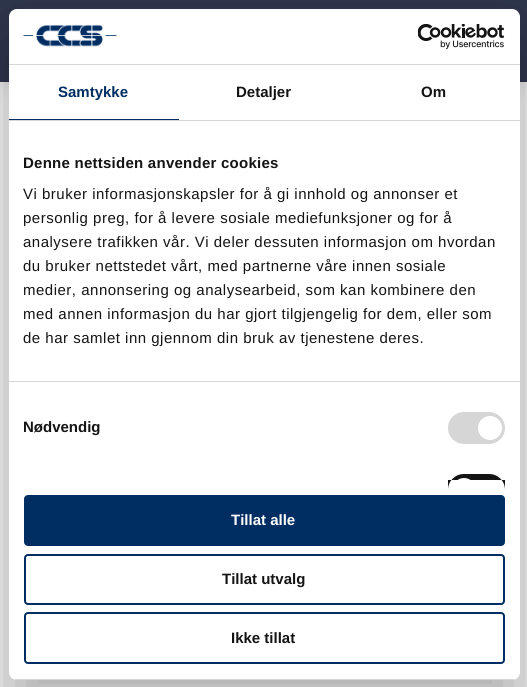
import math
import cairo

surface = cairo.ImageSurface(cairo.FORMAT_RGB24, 527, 687)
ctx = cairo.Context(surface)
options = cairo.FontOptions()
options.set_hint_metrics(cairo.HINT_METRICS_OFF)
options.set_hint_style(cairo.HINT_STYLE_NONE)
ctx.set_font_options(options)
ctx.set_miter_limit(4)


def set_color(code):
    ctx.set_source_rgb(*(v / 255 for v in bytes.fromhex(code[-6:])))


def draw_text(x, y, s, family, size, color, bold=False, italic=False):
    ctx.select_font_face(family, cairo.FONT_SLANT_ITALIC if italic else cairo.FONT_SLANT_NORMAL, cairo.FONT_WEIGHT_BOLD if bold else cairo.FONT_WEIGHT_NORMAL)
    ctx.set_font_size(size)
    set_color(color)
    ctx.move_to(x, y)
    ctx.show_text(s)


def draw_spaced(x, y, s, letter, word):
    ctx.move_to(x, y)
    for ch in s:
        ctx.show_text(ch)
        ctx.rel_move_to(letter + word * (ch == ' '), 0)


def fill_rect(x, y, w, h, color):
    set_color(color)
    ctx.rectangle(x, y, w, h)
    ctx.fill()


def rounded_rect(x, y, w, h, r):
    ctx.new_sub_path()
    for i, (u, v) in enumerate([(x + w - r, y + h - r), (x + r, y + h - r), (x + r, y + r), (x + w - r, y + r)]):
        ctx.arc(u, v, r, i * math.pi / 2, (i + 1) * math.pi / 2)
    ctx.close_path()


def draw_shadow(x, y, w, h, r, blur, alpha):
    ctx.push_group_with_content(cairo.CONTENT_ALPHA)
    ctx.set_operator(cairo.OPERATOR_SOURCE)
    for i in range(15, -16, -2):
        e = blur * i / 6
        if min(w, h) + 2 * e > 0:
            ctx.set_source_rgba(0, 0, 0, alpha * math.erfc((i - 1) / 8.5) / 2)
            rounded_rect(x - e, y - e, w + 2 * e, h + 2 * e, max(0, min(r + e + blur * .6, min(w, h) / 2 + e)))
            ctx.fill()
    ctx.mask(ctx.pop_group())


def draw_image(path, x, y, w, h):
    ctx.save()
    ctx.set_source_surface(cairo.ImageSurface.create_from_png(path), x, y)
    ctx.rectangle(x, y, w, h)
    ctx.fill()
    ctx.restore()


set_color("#f5f5f5")
ctx.paint()
set_color("#000000")
draw_shadow(0, 1, 527, 82, 0, 11.5, 0.1)
fill_rect(0, 0, 527, 82, "#2e364d")
set_color("#000000")
draw_shadow(9, 41, 511, 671, 8, 34, 0.3)
set_color("#ffffff")
rounded_rect(9, 9, 511, 671, 8)
ctx.fill()
fill_rect(9, 64, 511, 1, "#d6d6d6")
draw_image("assets/img1.png", 23, 24, 94, 23)
draw_image("assets/img2.png", 418, 24, 87, 25)
fill_rect(9, 120, 511, 1, "#d6d6d6")
fill_rect(9, 119, 170, 1, "#002d62")
draw_text(58, 97, "Samtykke", "Liberation Sans", 15, "#002d62", bold=True)
draw_text(236, 97, "Detaljer", "Liberation Sans", 15, "#141414", bold=True)
draw_text(421, 97, "Om", "Liberation Sans", 15, "#141414", bold=True)
fill_rect(9, 381, 511, 1, "#d6d6d6")
set_color("#141414")
draw_spaced(23, 168, "Denne nettsiden anvender cookies", 0.25, 0)
ctx.select_font_face("Liberation Sans")
draw_spaced(23, 199, "Vi bruker informasjonskapsler for å gi innhold og annonser et", 0.5, 0)
draw_spaced(23, 223, "personlig preg, for å levere sosiale mediefunksjoner og for å", 0.5, 0)
draw_spaced(23, 247, "analysere trafikken vår. Vi deler dessuten informasjon om hvordan", 0.5, 0)
draw_spaced(23, 271, "du bruker nettstedet vårt, med partnerne våre innen sosiale", 0.5, 0)
draw_spaced(23, 295, "medier, annonsering og analysearbeid, som kan kombinere den", 0.5, 0)
draw_spaced(23, 319, "med annen informasjon du har gjort tilgjengelig for dem, eller som", 0.5, 0)
draw_spaced(23, 343, "de har samlet inn gjennom din bruk av tjenestene deres.", 0.5, 0)
draw_text(23, 432, "Nødvendig", "Liberation Sans", 15, "#141414", bold=True)
set_color("#d6d6d6")
rounded_rect(448, 412, 57, 32, 16)
ctx.fill()
set_color("#ffffff")
ctx.arc(490, 428, 12, 0, 2 * math.pi)
ctx.fill()
set_color("#141414")
ctx.new_path()
ctx.move_to(464, 474)
ctx.line_to(489, 474)
ctx.curve_to(498, 474, 505, 481, 505, 490)
ctx.line_to(505, 480)
ctx.line_to(448, 480)
ctx.line_to(448, 490)
ctx.curve_to(448, 481, 455, 474, 464, 474)
ctx.close_path()
ctx.fill()
set_color("#ffffff")
ctx.new_path()
ctx.move_to(464, 478)
ctx.curve_to(470.5, 478, 476, 483.5, 476, 490)
ctx.line_to(476, 480)
ctx.line_to(452, 480)
ctx.line_to(452, 490)
ctx.curve_to(452, 483.5, 457.5, 478, 464, 478)
ctx.close_path()
ctx.fill()
ctx.save()
rounded_rect(9, 9, 511, 671, 8)
ctx.clip()
fill_rect(9, 679, 511, 1, "#d6d6d6")
ctx.restore()
set_color("#002d62")
rounded_rect(25, 496, 479, 49, 3)
ctx.fill_preserve()
ctx.stroke()
draw_text(231, 525, "Tillat alle", "Liberation Sans", 15, "#ffffff", bold=True)
rounded_rect(25, 555, 479, 49, 3)
set_color("#002d62")
ctx.stroke()
draw_text(222, 584, "Tillat utvalg", "Liberation Sans", 15, "#141414", bold=True)
rounded_rect(25, 613, 479, 50, 3)
set_color("#002d62")
ctx.stroke()
draw_text(231, 643, "Ikke tillat", "Liberation Sans", 15, "#141414", bold=True)
surface.write_to_png("output.png")
